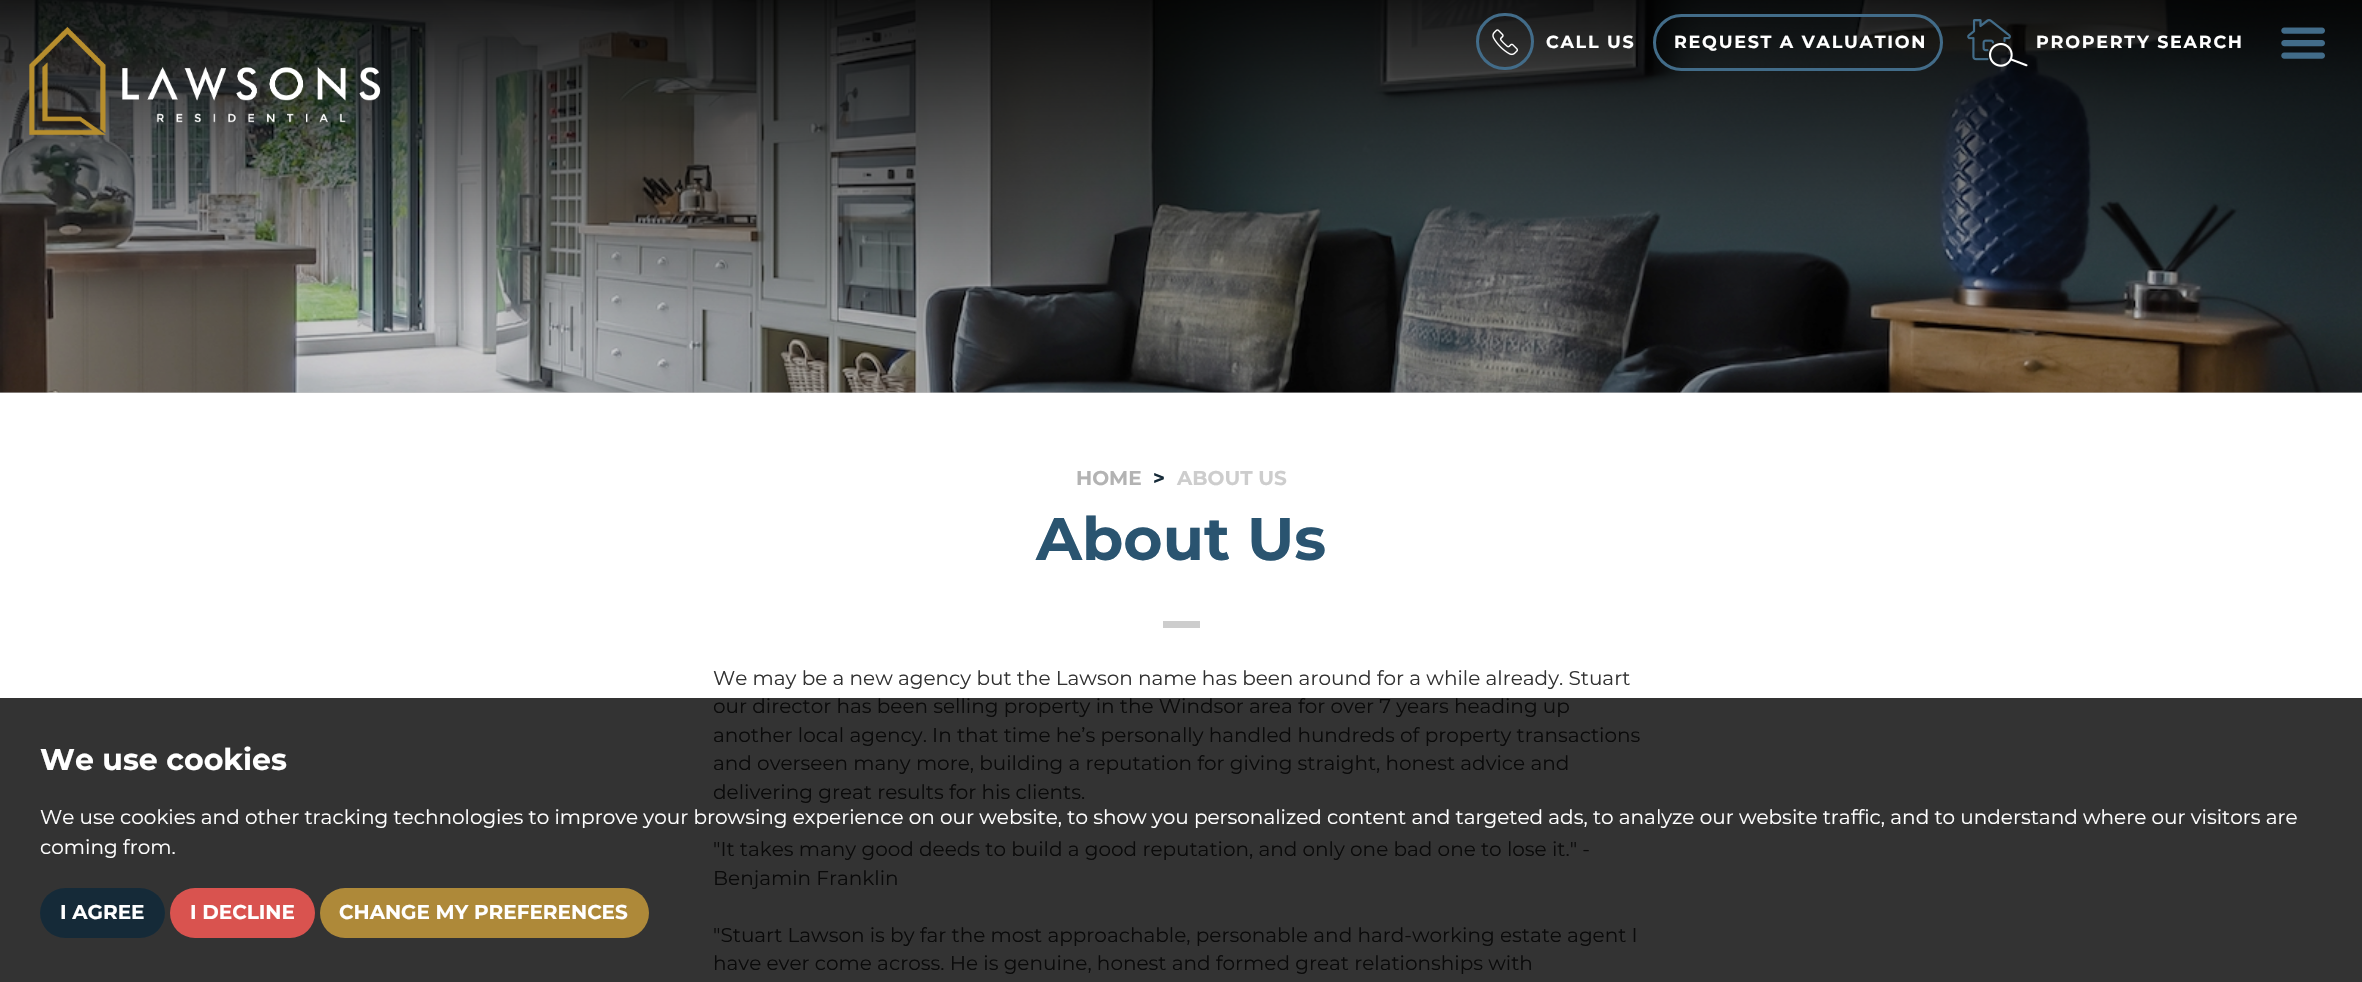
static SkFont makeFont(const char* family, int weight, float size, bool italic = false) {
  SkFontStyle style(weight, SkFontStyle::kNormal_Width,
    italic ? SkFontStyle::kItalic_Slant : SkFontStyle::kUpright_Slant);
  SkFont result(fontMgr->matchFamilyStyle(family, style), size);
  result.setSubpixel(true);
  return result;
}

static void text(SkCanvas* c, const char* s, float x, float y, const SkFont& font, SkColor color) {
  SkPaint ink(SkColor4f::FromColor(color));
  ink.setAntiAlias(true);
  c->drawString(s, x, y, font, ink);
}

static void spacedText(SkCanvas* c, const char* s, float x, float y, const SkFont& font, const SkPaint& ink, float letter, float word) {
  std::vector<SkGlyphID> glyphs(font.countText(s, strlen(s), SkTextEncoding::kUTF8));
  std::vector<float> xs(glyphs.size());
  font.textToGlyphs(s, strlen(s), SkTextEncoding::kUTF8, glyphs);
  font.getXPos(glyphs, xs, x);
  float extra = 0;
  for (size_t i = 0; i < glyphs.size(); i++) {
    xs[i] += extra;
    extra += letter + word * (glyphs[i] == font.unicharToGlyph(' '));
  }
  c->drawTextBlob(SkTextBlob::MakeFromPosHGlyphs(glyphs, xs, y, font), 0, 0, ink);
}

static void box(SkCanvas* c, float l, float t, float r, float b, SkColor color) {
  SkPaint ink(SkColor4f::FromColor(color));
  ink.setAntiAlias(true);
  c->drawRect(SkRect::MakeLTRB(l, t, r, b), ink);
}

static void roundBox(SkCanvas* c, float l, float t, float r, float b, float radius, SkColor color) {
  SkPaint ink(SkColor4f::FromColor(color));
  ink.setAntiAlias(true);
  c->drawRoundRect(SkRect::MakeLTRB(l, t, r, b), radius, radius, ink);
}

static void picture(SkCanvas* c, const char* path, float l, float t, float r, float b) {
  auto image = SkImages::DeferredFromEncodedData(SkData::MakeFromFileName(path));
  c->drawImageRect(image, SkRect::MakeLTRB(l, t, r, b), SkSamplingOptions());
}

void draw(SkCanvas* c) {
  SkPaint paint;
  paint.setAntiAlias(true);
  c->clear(0xffffffff);
  box(c, 0, 698, 2362, 982, 0xff333333);
  picture(c, "img_01.png", 0, 0, 2362, 393);
  {
    const SkColor colors[] = {0x33000000, 0xe6000000};
    const float stops[] = {0.2f, 1};
    const SkPoint ends[] = {{1181, 393}, {1181, 0}};
    paint.setShader(SkGradientShader::MakeLinear(ends, colors, stops, 2, SkTileMode::kClamp));
    paint.setAlpha(255);
  }
  c->drawRect(SkRect::MakeLTRB(0, 0, 2362, 393), paint);
  picture(c, "img_02.png", 29, 26, 381, 136);
  paint.setStyle(SkPaint::kStroke_Style);
  paint.setStrokeWidth(3);
  paint.setShader(nullptr);
  paint.setColor(0xff426c89);
  c->drawRoundRect(SkRect::MakeLTRB(1477.5f, 14.5f, 1532.5f, 68.5f), 27, 27, paint);
  picture(c, "img_03.png", 1492, 29, 1518, 56);
  SkFont face1 = makeFont("Montserrat", 700, 17.5f);
  paint.setStyle(SkPaint::kFill_Style);
  paint.setColor(0xffffffff);
  spacedText(c, "CALL US", 1546, 48, face1, paint, 1.75f, 0);
  paint.setStyle(SkPaint::kStroke_Style);
  paint.setColor(0xff426c89);
  c->drawRoundRect(SkRect::MakeLTRB(1654.5f, 15.5f, 1941.5f, 69.5f), 27, 27, paint);
  paint.setStyle(SkPaint::kFill_Style);
  paint.setColor(0xffffffff);
  spacedText(c, "REQUEST A VALUATION", 1674, 48, face1, paint, 1.75f, 0);
  picture(c, "img_04.png", 1967, 19, 2028, 67);
  spacedText(c, "PROPERTY SEARCH", 2036, 48, face1, paint, 1.75f, 0);
  picture(c, "img_05.png", 2281, 27, 2325, 59);
  SkFont face2 = makeFont("Montserrat", 700, 20);
  text(c, "HOME", 1076, 485, face2, 0xffb3b3b3);
  text(c, ">", 1153, 485, face2, 0xff152a38);
  text(c, "ABOUT US", 1177, 485, face2, 0xffcdcdcd);
  SkFont face3 = makeFont("Montserrat", 700, 60);
  text(c, "About Us", 1036, 560, face3, 0xff2a5470);
  box(c, 1163, 621, 1200, 628, 0xffcdcdcd);
  SkFont face4 = makeFont("Montserrat", 400, 20);
  text(c, "We may be a new agency but the Lawson name has been around for a while already. Stuart", 713, 685, face4, 0xff333333);
  text(c, "our director has been selling property in the Windsor area for over 7 years heading up", 713, 713, face4, 0xff0a0a0a);
  text(c, "another local agency. In that time he’s personally handled hundreds of property transactions", 713, 742, face4, 0xff0a0a0a);
  text(c, "and overseen many more, building a reputation for giving straight, honest advice and", 713, 770, face4, 0xff0a0a0a);
  text(c, "delivering great results for his clients.", 713, 799, face4, 0xff0a0a0a);
  text(c, "\"It takes many good deeds to build a good reputation, and only one bad one to lose it.\" -", 713, 856, face4, 0xff0a0a0a);
  text(c, "Benjamin Franklin", 713, 885, face4, 0xff0a0a0a);
  text(c, "\"Stuart Lawson is by far the most approachable, personable and hard-working estate agent I", 713, 942, face4, 0xff0a0a0a);
  text(c, "have ever come across. He is genuine, honest and formed great relationships with", 713, 970, face4, 0xff0a0a0a);
  SkFont face5 = makeFont("Montserrat", 700, 30);
  text(c, "We use cookies", 40, 770, face5, 0xffffffff);
  text(c, "We use cookies and other tracking technologies to improve your browsing experience on our website, to show you personalized content and targeted ads, to analyze our website traffic, and to understand where our visitors are", 40, 824, face4, 0xffffffff);
  text(c, "coming from.", 40, 854, face4, 0xffffffff);
  roundBox(c, 40, 888, 165, 938, 25, 0xff152a38);
  text(c, "I AGREE", 60, 919, face2, 0xffffffff);
  roundBox(c, 170, 888, 315, 938, 25, 0xffd9534f);
  text(c, "I DECLINE", 190, 919, face2, 0xffffffff);
  roundBox(c, 320, 888, 649, 938, 25, 0xffae8939);
  text(c, "CHANGE MY PREFERENCES", 339, 919, face2, 0xffffffff);
}
